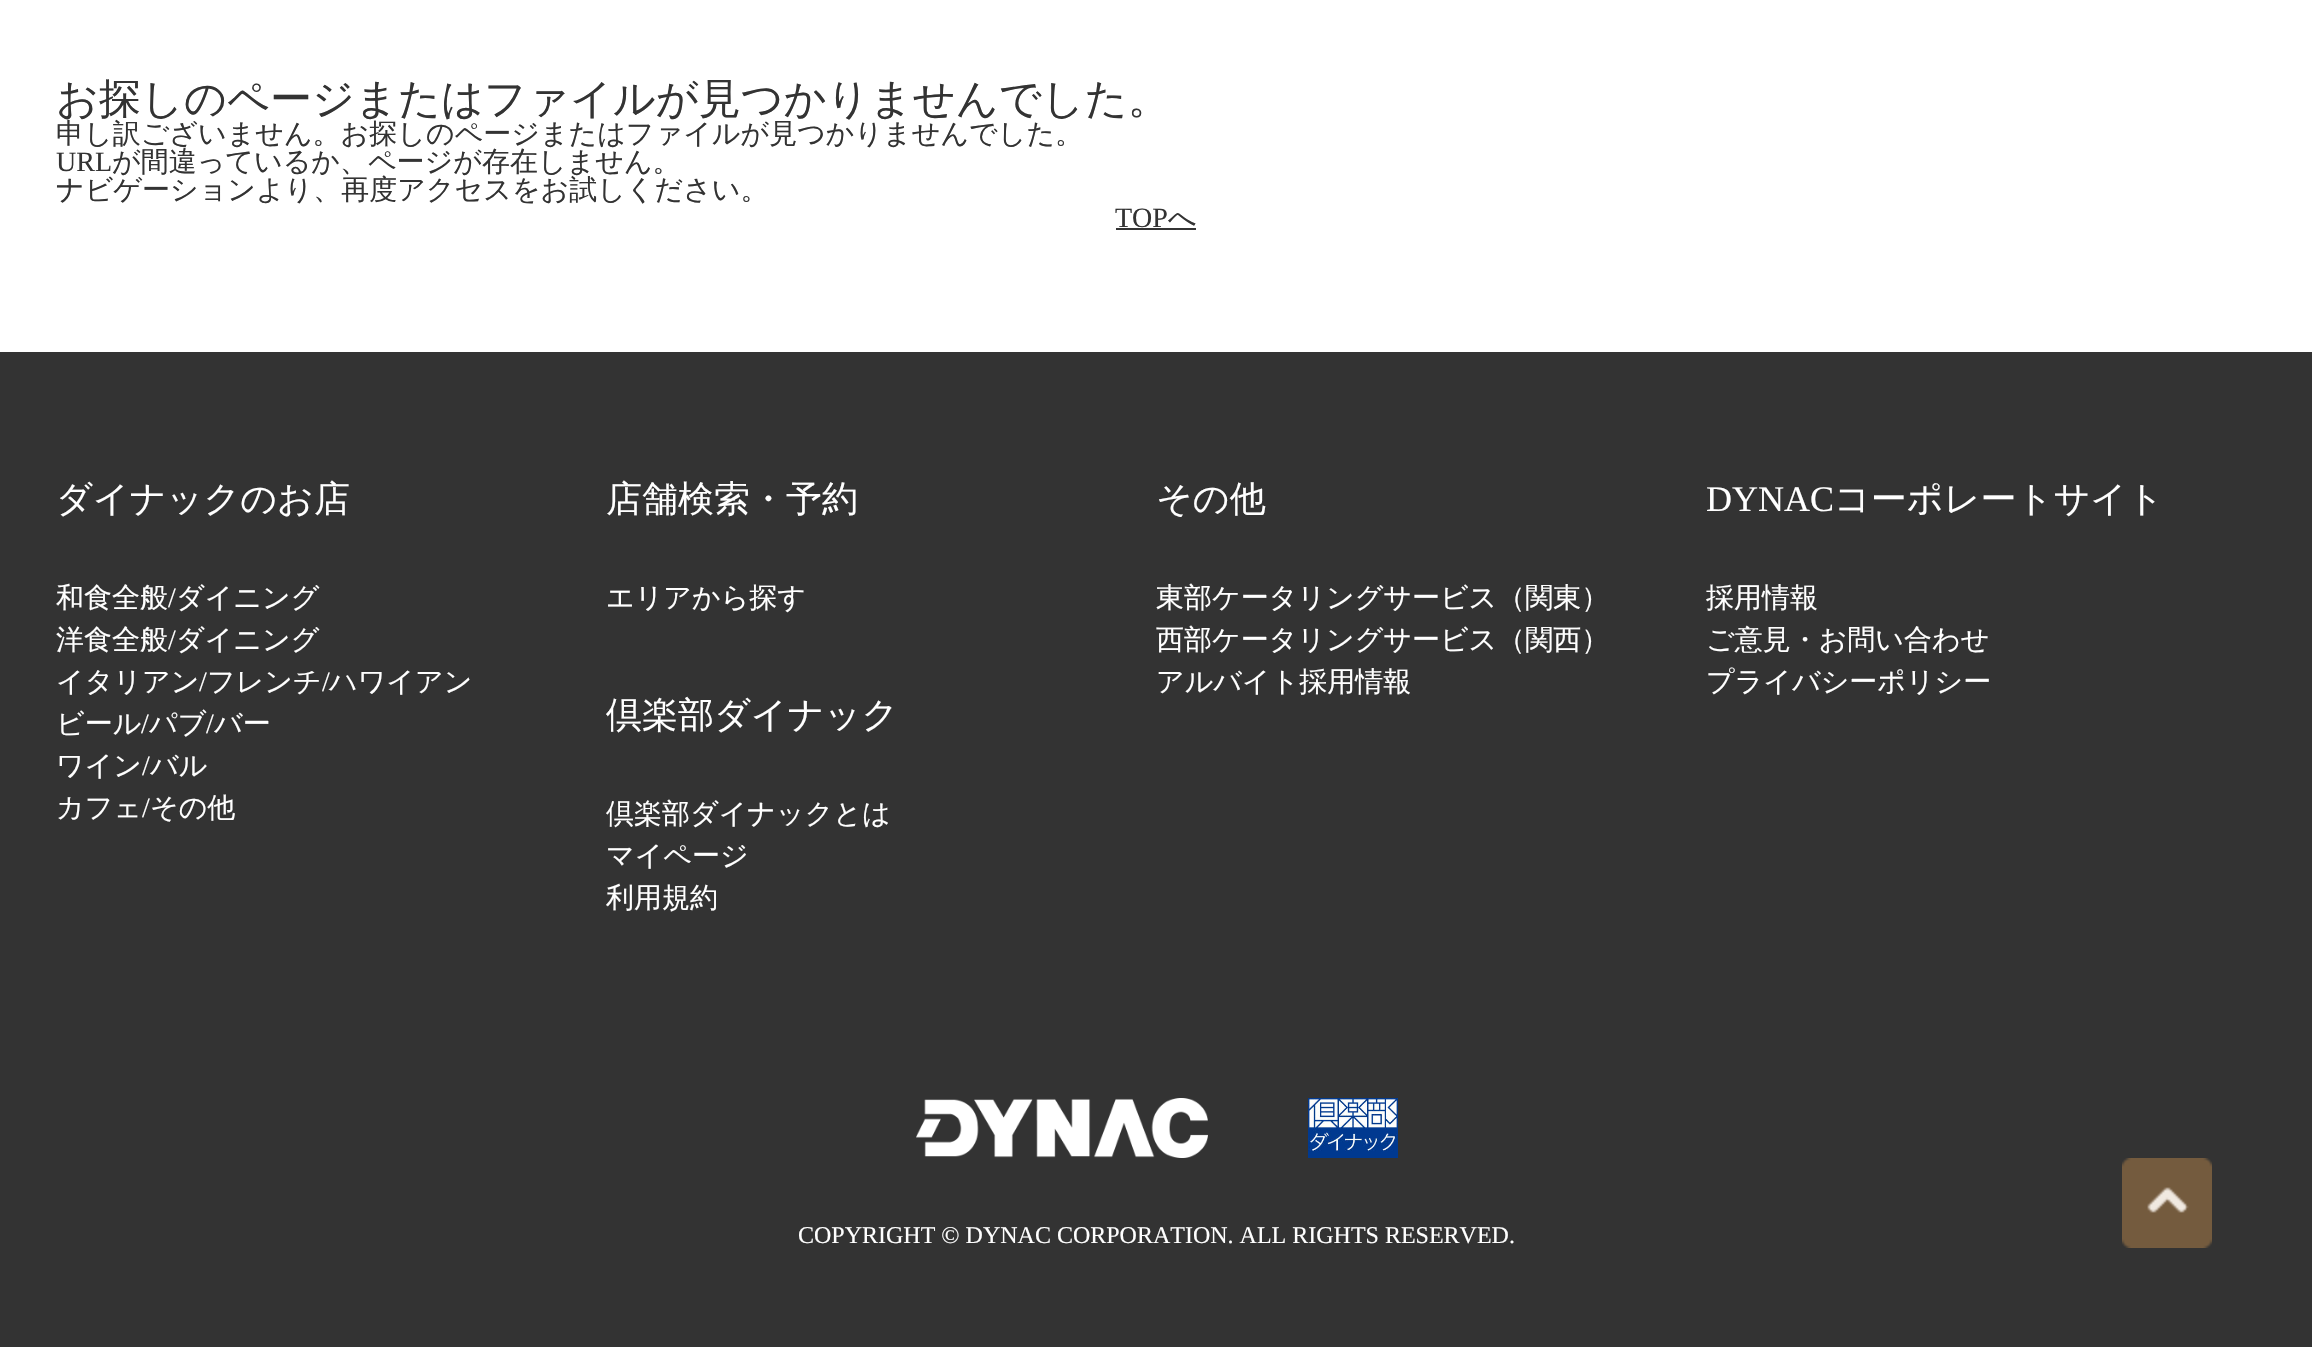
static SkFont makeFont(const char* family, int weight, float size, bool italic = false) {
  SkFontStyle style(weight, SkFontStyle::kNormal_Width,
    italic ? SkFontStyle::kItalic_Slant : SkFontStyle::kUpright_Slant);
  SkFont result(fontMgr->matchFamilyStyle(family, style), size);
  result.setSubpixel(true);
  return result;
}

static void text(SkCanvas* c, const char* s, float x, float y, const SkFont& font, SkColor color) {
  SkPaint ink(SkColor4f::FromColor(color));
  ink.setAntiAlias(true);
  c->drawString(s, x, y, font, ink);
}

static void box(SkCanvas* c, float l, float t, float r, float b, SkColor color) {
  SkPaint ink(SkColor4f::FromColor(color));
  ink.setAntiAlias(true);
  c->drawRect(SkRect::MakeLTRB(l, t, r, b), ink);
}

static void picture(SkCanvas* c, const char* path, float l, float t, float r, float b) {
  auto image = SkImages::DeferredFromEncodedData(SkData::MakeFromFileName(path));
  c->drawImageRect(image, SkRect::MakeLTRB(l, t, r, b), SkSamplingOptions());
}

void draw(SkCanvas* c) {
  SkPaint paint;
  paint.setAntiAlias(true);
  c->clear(0xffffffff);
  SkFont face1 = makeFont("WenQuanYi Zen Hei", 500, 42);
  text(c, "お探しのページまたはファイルが見つかりませんでした。", 56, 113, face1, 0xff333333);
  SkFont face2 = makeFont("WenQuanYi Zen Hei", 500, 28);
  text(c, "申し訳ございません。お探しのページまたはファイルが見つかりませんでした。", 56, 143, face2, 0xff333333);
  SkFont face3 = makeFont("Liberation Serif", 400, 28);
  text(c, "URL", 56, 171, face3, 0xff333333);
  text(c, "が間違っているか、ページが存在しません。", 112, 171, face2, 0xff333333);
  text(c, "ナビゲーションより、再度アクセスをお試しください。", 56, 199, face2, 0xff333333);
  text(c, "TOP", 1115, 227, face3, 0xff333333);
  text(c, "へ", 1168, 227, face2, 0xff333333);
  box(c, 1116, 228, 1196, 230, 0xff333333);
  box(c, 0, 352, 2312, 1347, 0xff333333);
  SkFont face4 = makeFont("WenQuanYi Zen Hei", 500, 36);
  text(c, "ダイナックのお店", 56, 511, face4, 0xffffffff);
  text(c, "和食全般", 56, 607, face2, 0xffffffff);
  text(c, "/", 168, 607, face3, 0xffffffff);
  text(c, "ダイニング", 176, 607, face2, 0xffffffff);
  text(c, "洋食全般", 56, 649, face2, 0xffffffff);
  text(c, "/", 168, 649, face3, 0xffffffff);
  text(c, "ダイニング", 176, 649, face2, 0xffffffff);
  text(c, "イタリアン", 56, 691, face2, 0xffffffff);
  text(c, "/", 199, 691, face3, 0xffffffff);
  text(c, "フレンチ", 207, 691, face2, 0xffffffff);
  text(c, "/", 322, 691, face3, 0xffffffff);
  text(c, "ハワイアン", 329, 691, face2, 0xffffffff);
  text(c, "ビール", 56, 733, face2, 0xffffffff);
  text(c, "/", 141, 733, face3, 0xffffffff);
  text(c, "パブ", 149, 733, face2, 0xffffffff);
  text(c, "/", 206, 733, face3, 0xffffffff);
  text(c, "バー", 214, 733, face2, 0xffffffff);
  text(c, "ワイン", 56, 775, face2, 0xffffffff);
  text(c, "/", 142, 775, face3, 0xffffffff);
  text(c, "バル", 150, 775, face2, 0xffffffff);
  text(c, "カフェ", 56, 817, face2, 0xffffffff);
  text(c, "/", 142, 817, face3, 0xffffffff);
  text(c, "その他", 150, 817, face2, 0xffffffff);
  text(c, "店舗検索・予約", 606, 511, face4, 0xffffffff);
  text(c, "エリアから探す", 606, 607, face2, 0xffffffff);
  text(c, "倶楽部ダイナック", 606, 727, face4, 0xffffffff);
  text(c, "倶楽部ダイナックとは", 606, 823, face2, 0xffffffff);
  text(c, "マイページ", 606, 865, face2, 0xffffffff);
  text(c, "利用規約", 606, 907, face2, 0xffffffff);
  text(c, "その他", 1156, 511, face4, 0xffffffff);
  text(c, "東部ケータリングサービス（関東）", 1156, 607, face2, 0xffffffff);
  text(c, "西部ケータリングサービス（関西）", 1156, 649, face2, 0xffffffff);
  text(c, "アルバイト採用情報", 1156, 691, face2, 0xffffffff);
  SkFont face5 = makeFont("Liberation Serif", 400, 36);
  text(c, "DYNAC", 1706, 511, face5, 0xffffffff);
  text(c, "コーポレートサイト", 1834, 511, face4, 0xffffffff);
  text(c, "採用情報", 1706, 607, face2, 0xffffffff);
  text(c, "ご意見・お問い合わせ", 1706, 649, face2, 0xffffffff);
  text(c, "プライバシーポリシー", 1706, 691, face2, 0xffffffff);
  picture(c, "img_01.png", 916, 1098, 1208, 1158);
  picture(c, "img_02.png", 1308, 1098, 1398, 1158);
  SkFont face6 = makeFont("Liberation Serif", 400, 24);
  text(c, "COPYRIGHT © DYNAC CORPORATION. ALL RIGHTS RESERVED.", 798, 1243, face6, 0xffffffff);
  picture(c, "img_03.png", 2122, 1158, 2212, 1248);
}
